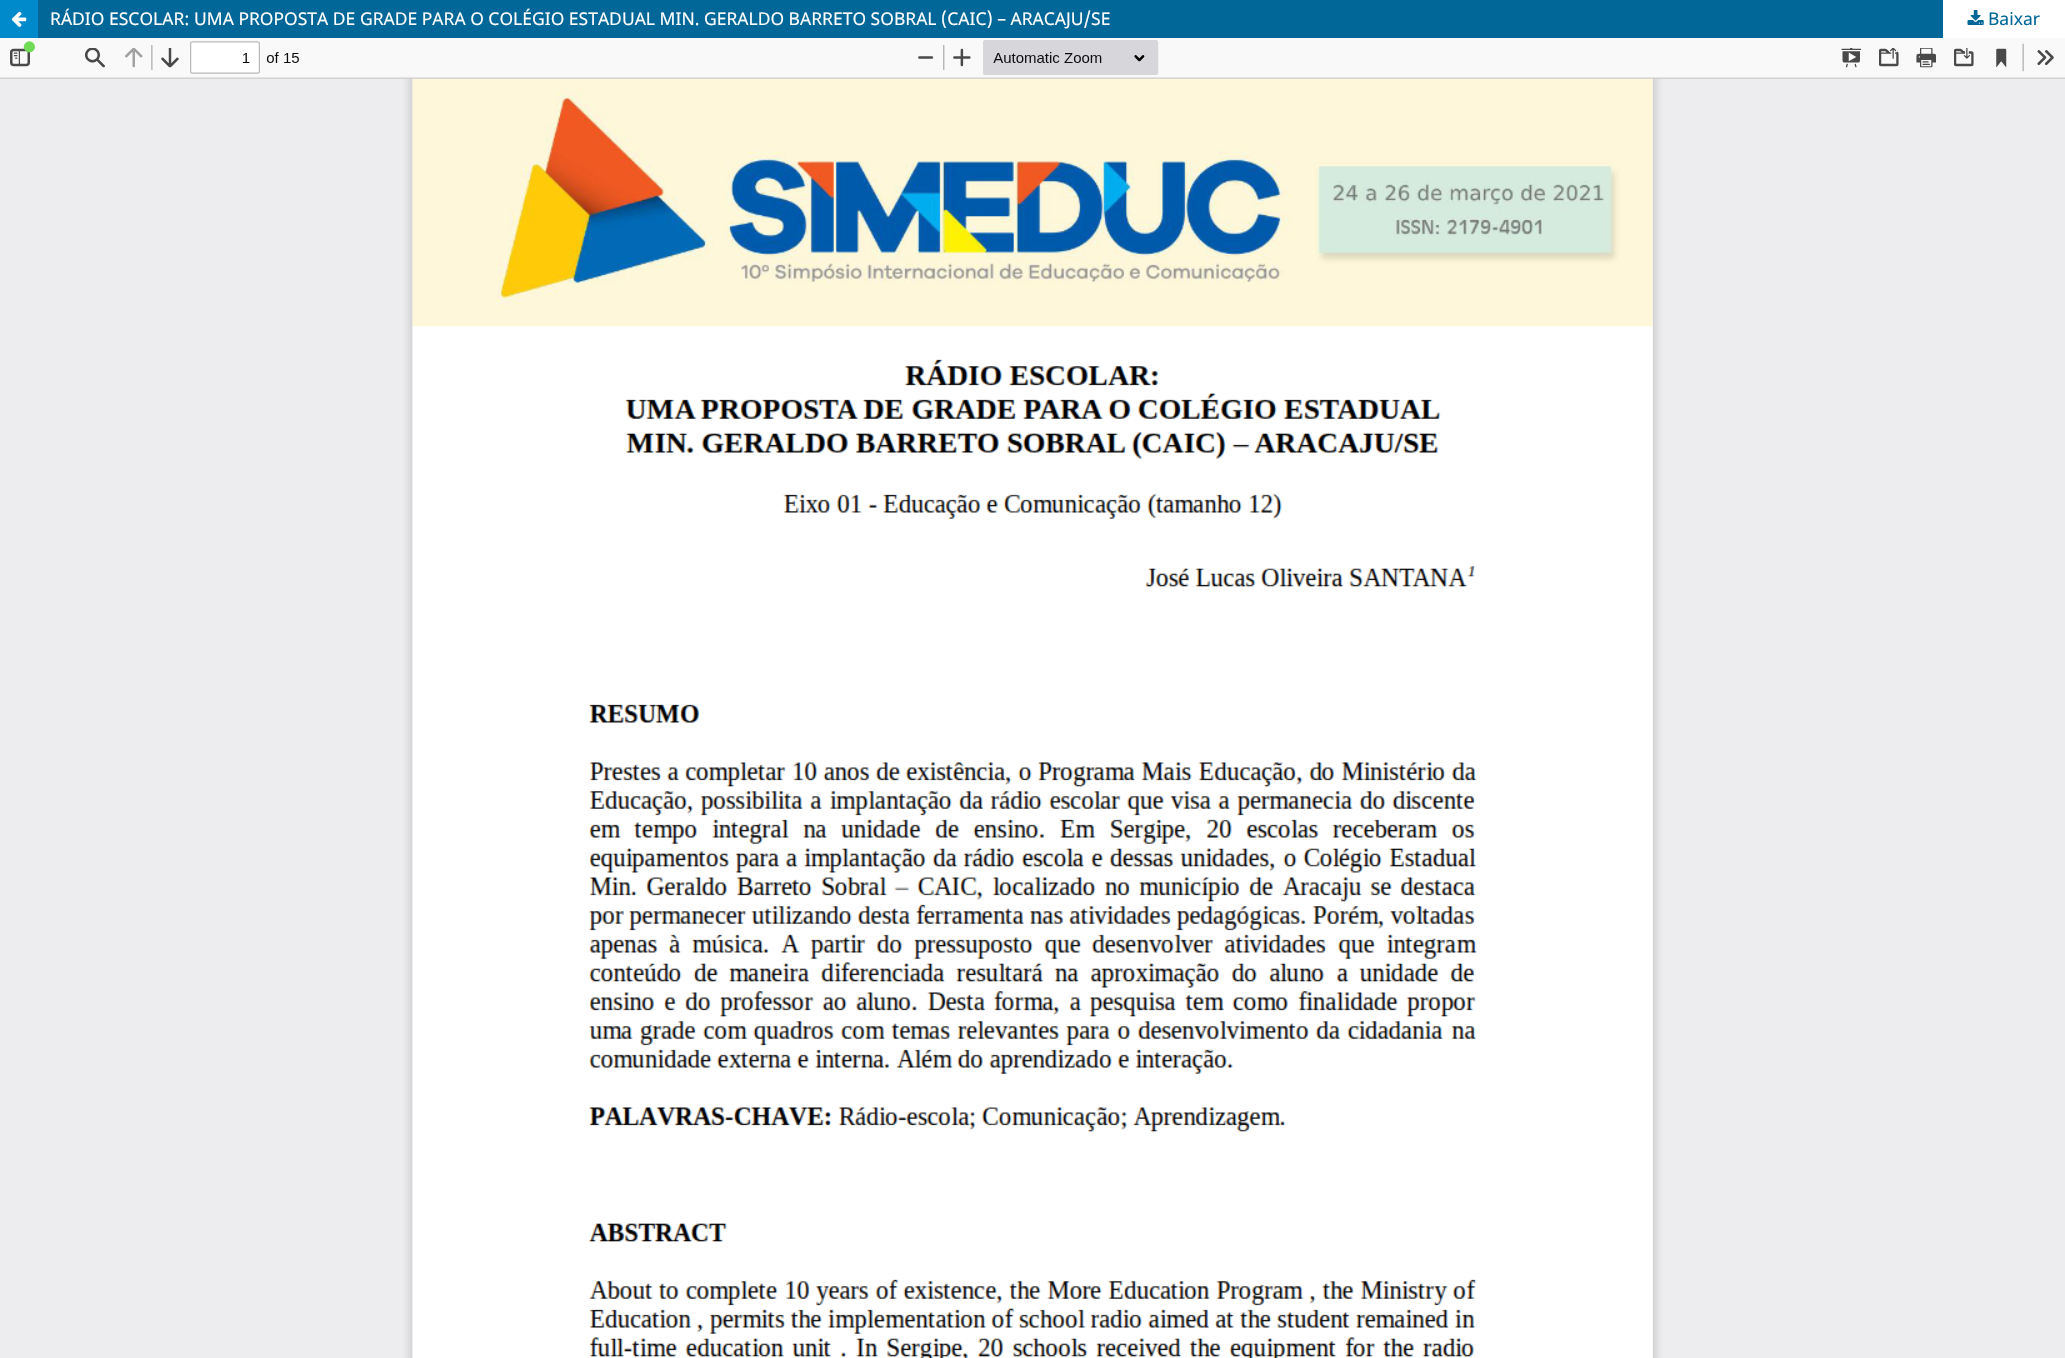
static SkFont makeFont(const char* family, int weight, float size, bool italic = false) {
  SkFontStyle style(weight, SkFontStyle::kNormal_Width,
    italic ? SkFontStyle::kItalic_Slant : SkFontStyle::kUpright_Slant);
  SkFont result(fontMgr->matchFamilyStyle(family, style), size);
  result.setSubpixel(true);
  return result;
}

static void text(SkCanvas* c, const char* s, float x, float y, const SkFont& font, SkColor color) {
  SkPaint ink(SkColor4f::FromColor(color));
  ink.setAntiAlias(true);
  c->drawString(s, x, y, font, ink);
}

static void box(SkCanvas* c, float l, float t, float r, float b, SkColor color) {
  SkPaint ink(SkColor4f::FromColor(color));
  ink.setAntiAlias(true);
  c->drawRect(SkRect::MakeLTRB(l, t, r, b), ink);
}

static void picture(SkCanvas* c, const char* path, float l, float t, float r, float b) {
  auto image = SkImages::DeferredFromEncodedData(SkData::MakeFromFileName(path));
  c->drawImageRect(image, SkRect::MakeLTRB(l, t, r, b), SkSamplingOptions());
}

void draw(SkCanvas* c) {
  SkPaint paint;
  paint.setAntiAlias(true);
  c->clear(0xffffffff);
  box(c, 38, 0, 1943, 38, 0xff006798);
  box(c, 0, 0, 38, 38, 0xff008acb);
  picture(c, "img_01.png", 11, 11, 27, 27);
  SkFont face1 = makeFont("Noto Sans", 400, 17.5f);
  text(c, "RÁDIO ESCOLAR: UMA PROPOSTA DE GRADE PARA O COLÉGIO ESTADUAL MIN. GERALDO BARRETO SOBRAL (CAIC) – ARACAJU/SE", 50, 25, face1, 0xffffffff);
  picture(c, "img_02.png", 1967, 10, 1984, 25);
  text(c, "Baixar", 1988, 25, face1, 0xff006798);
  picture(c, "img_03.png", 0, 38, 2065, 1358);
}
